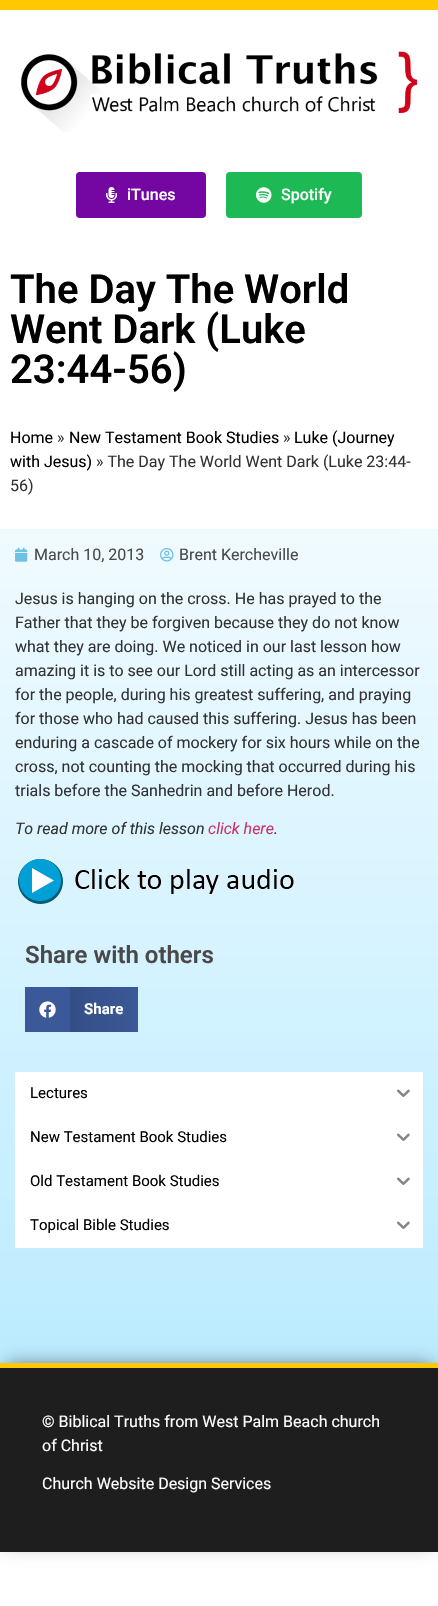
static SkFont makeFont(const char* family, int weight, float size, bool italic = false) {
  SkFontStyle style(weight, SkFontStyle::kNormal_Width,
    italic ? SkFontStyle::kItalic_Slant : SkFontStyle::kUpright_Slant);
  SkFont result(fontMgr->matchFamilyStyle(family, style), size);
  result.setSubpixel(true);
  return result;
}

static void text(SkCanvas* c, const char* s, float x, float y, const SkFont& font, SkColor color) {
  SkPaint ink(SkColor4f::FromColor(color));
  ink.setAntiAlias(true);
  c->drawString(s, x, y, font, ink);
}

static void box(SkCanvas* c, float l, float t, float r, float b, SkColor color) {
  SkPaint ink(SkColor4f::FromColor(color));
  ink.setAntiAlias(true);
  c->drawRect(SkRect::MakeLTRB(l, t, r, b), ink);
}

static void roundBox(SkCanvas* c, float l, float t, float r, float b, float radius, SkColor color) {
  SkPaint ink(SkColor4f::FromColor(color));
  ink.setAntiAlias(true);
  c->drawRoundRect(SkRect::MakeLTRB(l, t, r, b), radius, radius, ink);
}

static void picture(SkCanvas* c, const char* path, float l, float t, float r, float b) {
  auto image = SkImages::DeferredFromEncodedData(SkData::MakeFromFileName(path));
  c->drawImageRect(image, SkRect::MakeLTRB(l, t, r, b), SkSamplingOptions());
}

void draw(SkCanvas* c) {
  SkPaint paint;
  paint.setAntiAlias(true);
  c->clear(0xffffffff);
  {
    const SkColor colors[] = {0xffffffff, 0xffb0e8ff};
    const float stops[] = {0.19f, 1};
    const SkPoint ends[] = {{219, 0}, {219, 1552}};
    paint.setShader(SkGradientShader::MakeLinear(ends, colors, stops, 2, SkTileMode::kClamp));
    paint.setAlpha(255);
  }
  c->drawRect(SkRect::MakeLTRB(0, 335, 438, 1363), paint);
  {
    const SkColor colors[] = {0xffffffff, 0xffd8f4ff};
    const float stops[] = {0.19f, 1};
    const SkPoint ends[] = {{219, 0}, {219, 1552}};
    paint.setShader(SkGradientShader::MakeLinear(ends, colors, stops, 2, SkTileMode::kClamp));
    paint.setAlpha(255);
  }
  c->drawRect(SkRect::MakeLTRB(404, 528, 438, 529), paint);
  box(c, 0, 0, 438, 10, 0xffffc800);
  picture(c, "img_01.png", 21, 51, 418, 132);
  roundBox(c, 76, 172, 206, 218, 4, 0xff7407a2);
  picture(c, "img_02.png", 106, 187, 117, 203);
  SkFont face1 = makeFont("Roboto", 500, 16);
  text(c, "iTunes", 127, 200, face1, 0xffffffff);
  roundBox(c, 226, 172, 362, 218, 4, 0xff1db954);
  picture(c, "img_03.png", 256, 187, 272, 203);
  text(c, "Spotify", 281, 200, face1, 0xffffffff);
  box(c, 0, 335, 438, 517, 0xffffffff);
  box(c, 1, 517, 438, 528, 0xffffffff);
  SkFont face2 = makeFont("Roboto", 600, 40);
  text(c, "The Day The World", 10, 303, face2, 0xff000000);
  text(c, "Went Dark (Luke", 10, 343, face2, 0xff000000);
  text(c, "23:44-56)", 10, 383, face2, 0xff000000);
  SkFont face3 = makeFont("Roboto", 400, 16);
  text(c, "Home", 10, 443, face3, 0xff000000);
  text(c, "»", 57, 443, face3, 0xff333333);
  text(c, "New Testament Book Studies", 69, 443, face3, 0xff000000);
  text(c, "»", 283, 443, face3, 0xff333333);
  text(c, "Luke (Journey", 294, 443, face3, 0xff000000);
  text(c, "with Jesus)", 10, 467, face3, 0xff000000);
  text(c, "» The Day The World Went Dark (Luke 23:44-", 96, 467, face3, 0xff333333);
  text(c, "56)", 10, 491, face3, 0xff333333);
  paint.setShader(nullptr);
  paint.setColor(0xffffffff);
  c->drawPath(SkPathBuilder().moveTo(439, 529).lineTo(-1, 529).lineTo(-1, 517).close().detach(), paint);
  picture(c, "img_04.png", 15, 547, 28, 562);
  text(c, "March 10, 2013", 34, 560, face3, 0xff494949);
  picture(c, "img_05.png", 160, 548, 174, 562);
  text(c, "Brent Kercheville", 179, 560, face3, 0xff494949);
  text(c, "Jesus is hanging on the cross. He has prayed to the", 15, 604, face3, 0xff333333);
  text(c, "Father that they be forgiven because they do not know", 15, 628, face3, 0xff333333);
  text(c, "what they are doing. We noticed in our last lesson how", 15, 652, face3, 0xff333333);
  text(c, "amazing it is to see our Lord still acting as an intercessor", 15, 676, face3, 0xff333333);
  text(c, "for the people, during his greatest suffering, and praying", 15, 700, face3, 0xff333333);
  text(c, "for those who had caused this suffering. Jesus has been", 15, 724, face3, 0xff333333);
  text(c, "enduring a cascade of mockery for six hours while on the", 15, 748, face3, 0xff333333);
  text(c, "cross, not counting the mocking that occurred during his", 15, 772, face3, 0xff333333);
  text(c, "trials before the Sanhedrin and before Herod.", 15, 796, face3, 0xff333333);
  SkFont face4 = makeFont("Roboto", 400, 16, true);
  text(c, "To read more of this lesson", 15, 834, face4, 0xff333333);
  text(c, "click here", 208, 834, face4, 0xffcc3366);
  text(c, ".", 274, 834, face4, 0xff333333);
  picture(c, "img_06.png", 18, 859, 294, 904);
  SkFont face5 = makeFont("Roboto", 600, 24);
  text(c, "Share with others", 25, 963, face5, 0xff494949);
  box(c, 25, 987, 70, 1032, 0xff3b5998);
  picture(c, "img_07.png", 39, 1001, 56, 1018);
  {
    const SkColor colors[] = {0xff344e86, 0xff3b5998};
    const float stops[] = {0, 1};
    const SkPoint ends[] = {{70, 1010}, {138, 1010}};
    paint.setShader(SkGradientShader::MakeLinear(ends, colors, stops, 2, SkTileMode::kClamp));
    paint.setAlpha(255);
  }
  c->drawRect(SkRect::MakeLTRB(70, 987, 138, 1032), paint);
  SkFont face6 = makeFont("Roboto", 700, 15);
  text(c, "Share", 84, 1014, face6, 0xffffffff);
  box(c, 15, 1072, 423, 1248, 0xffffffff);
  SkFont face7 = makeFont("Roboto", 400, 15);
  text(c, "Lectures", 30, 1098, face7, 0xff000000);
  picture(c, "img_08.png", 397, 1089, 410, 1097);
  text(c, "New Testament Book Studies", 30, 1142, face7, 0xff000000);
  picture(c, "img_08.png", 397, 1133, 410, 1141);
  text(c, "Old Testament Book Studies", 30, 1186, face7, 0xff000000);
  picture(c, "img_08.png", 397, 1177, 410, 1185);
  text(c, "Topical Bible Studies", 30, 1230, face7, 0xff000000);
  picture(c, "img_08.png", 397, 1221, 410, 1229);
  paint.setShader(nullptr);
  paint.setColor(0x80000000);
  paint.setMaskFilter(SkMaskFilter::MakeBlur(kNormal_SkBlurStyle, 9.5f));
  c->drawRect(SkRect::MakeLTRB(6, 1365, 432, 1542), paint);
  paint.setMaskFilter(nullptr);
  box(c, 0, 1368, 438, 1552, 0xff1e1e1e);
  box(c, 0, 1363, 438, 1368, 0xffffc800);
  text(c, "© Biblical Truths from West Palm Beach church", 42, 1427, face3, 0xffffffff);
  text(c, "of Christ", 42, 1451, face3, 0xffffffff);
  text(c, "Church Website Design Services", 42, 1489, face3, 0xffffffff);
}
